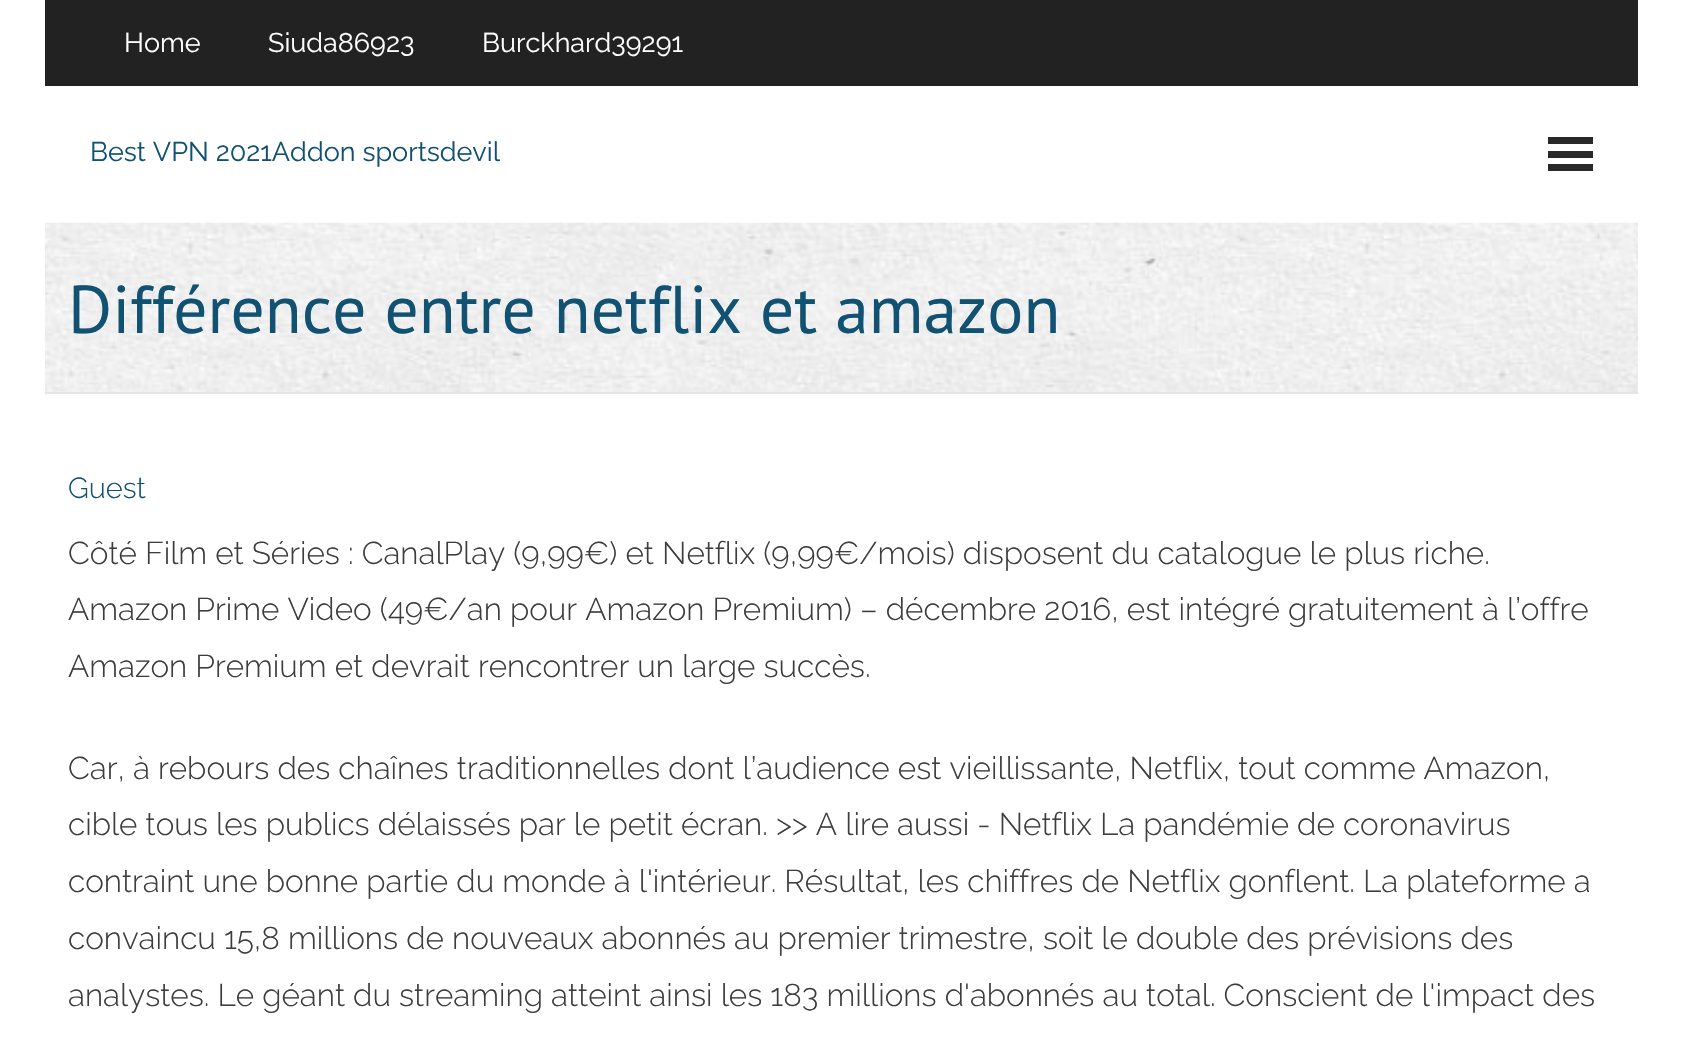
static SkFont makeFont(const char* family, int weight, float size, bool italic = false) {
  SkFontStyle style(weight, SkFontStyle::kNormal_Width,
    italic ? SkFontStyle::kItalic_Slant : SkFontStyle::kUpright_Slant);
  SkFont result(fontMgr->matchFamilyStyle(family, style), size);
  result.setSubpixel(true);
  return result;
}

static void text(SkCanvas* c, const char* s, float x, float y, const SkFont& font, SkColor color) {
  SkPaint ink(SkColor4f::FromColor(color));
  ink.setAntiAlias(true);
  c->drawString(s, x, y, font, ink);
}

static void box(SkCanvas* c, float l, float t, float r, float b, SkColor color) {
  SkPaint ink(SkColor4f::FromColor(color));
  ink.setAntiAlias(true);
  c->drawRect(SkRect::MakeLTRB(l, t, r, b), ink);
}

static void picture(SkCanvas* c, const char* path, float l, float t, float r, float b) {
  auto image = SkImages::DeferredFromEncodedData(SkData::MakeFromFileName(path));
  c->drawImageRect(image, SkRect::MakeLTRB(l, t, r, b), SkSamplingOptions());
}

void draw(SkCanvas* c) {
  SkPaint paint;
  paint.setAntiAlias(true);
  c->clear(0xffffffff);
  box(c, 45, 0, 1638, 86, 0xff222222);
  SkFont face1 = makeFont("Raleway", 400, 27);
  text(c, "Home", 124, 52, face1, 0xffffffff);
  text(c, "Siuda86923", 268, 52, face1, 0xffffffff);
  text(c, "Burckhard39291", 482, 52, face1, 0xffffffff);
  text(c, "Best VPN 2021Addon sportsdevil", 90, 161, face1, 0xff115172);
  box(c, 1548, 137, 1593, 144, 0xff292929);
  box(c, 1548, 151, 1593, 158, 0xff292929);
  box(c, 1548, 164, 1593, 171, 0xff292929);
  picture(c, "img_01.png", 45, 222, 1638, 392);
  box(c, 45, 392, 1638, 394, 0xffe5e5e5);
  SkFont face2 = makeFont("PT Sans", 400, 67.5f);
  text(c, "Différence entre netflix et amazon", 68, 333, face2, 0xff115172);
  SkFont face3 = makeFont("Raleway", 300, 29);
  text(c, "Guest", 68, 498, face3, 0xff115172);
  SkFont face4 = makeFont("Raleway", 300, 31.5f);
  text(c, "Côté Film et Séries : CanalPlay (9,99€) et Netflix (9,99€/mois) disposent du catalogue le plus riche.", 68, 564, face4, 0xff3d3d3d);
  text(c, "Amazon Prime Video (49€/an pour Amazon Premium) – décembre 2016, est intégré gratuitement à l’offre", 68, 620, face4, 0xff3d3d3d);
  text(c, "Amazon Premium et devrait rencontrer un large succès.", 68, 677, face4, 0xff3d3d3d);
  text(c, "Car, à rebours des chaînes traditionnelles dont l’audience est vieillissante, Netflix, tout comme Amazon,", 68, 779, face4, 0xff3d3d3d);
  text(c, "cible tous les publics délaissés par le petit écran. >> A lire aussi - Netflix La pandémie de coronavirus", 68, 835, face4, 0xff3d3d3d);
  text(c, "contraint une bonne partie du monde à l'intérieur. Résultat, les chiffres de Netflix gonflent. La plateforme a", 68, 892, face4, 0xff3d3d3d);
  text(c, "convaincu 15,8 millions de nouveaux abonnés au premier trimestre, soit le double des prévisions des", 68, 949, face4, 0xff3d3d3d);
  text(c, "analystes. Le géant du streaming atteint ainsi les 183 millions d'abonnés au total. Conscient de l'impact des", 68, 1006, face4, 0xff3d3d3d);
}
